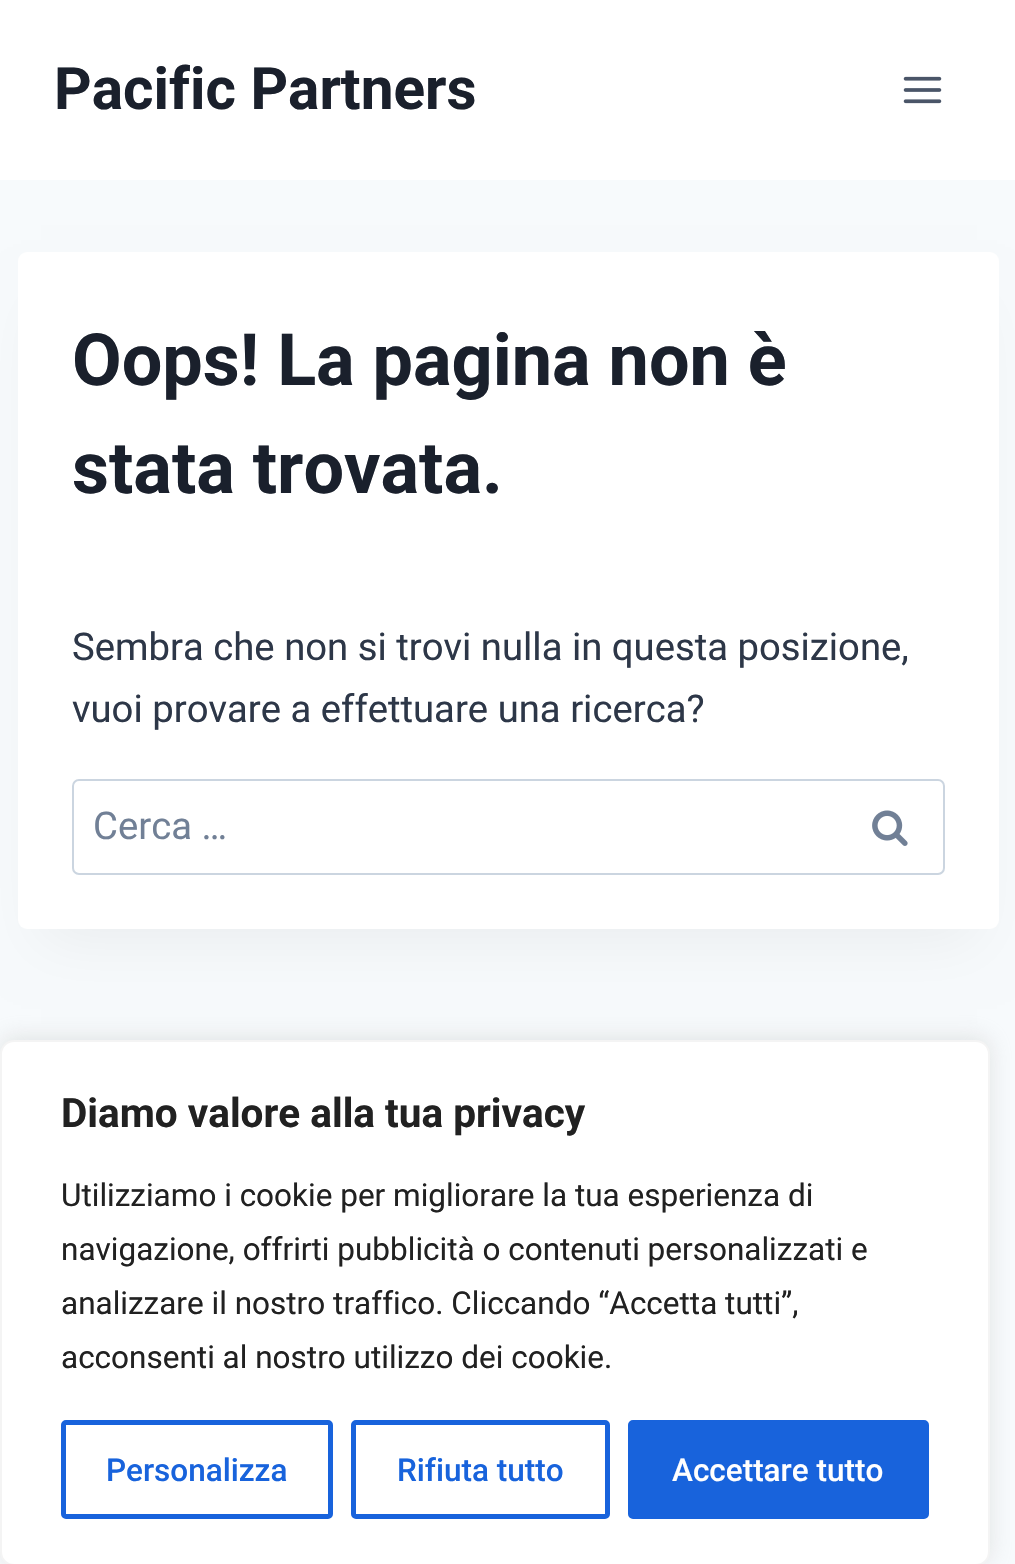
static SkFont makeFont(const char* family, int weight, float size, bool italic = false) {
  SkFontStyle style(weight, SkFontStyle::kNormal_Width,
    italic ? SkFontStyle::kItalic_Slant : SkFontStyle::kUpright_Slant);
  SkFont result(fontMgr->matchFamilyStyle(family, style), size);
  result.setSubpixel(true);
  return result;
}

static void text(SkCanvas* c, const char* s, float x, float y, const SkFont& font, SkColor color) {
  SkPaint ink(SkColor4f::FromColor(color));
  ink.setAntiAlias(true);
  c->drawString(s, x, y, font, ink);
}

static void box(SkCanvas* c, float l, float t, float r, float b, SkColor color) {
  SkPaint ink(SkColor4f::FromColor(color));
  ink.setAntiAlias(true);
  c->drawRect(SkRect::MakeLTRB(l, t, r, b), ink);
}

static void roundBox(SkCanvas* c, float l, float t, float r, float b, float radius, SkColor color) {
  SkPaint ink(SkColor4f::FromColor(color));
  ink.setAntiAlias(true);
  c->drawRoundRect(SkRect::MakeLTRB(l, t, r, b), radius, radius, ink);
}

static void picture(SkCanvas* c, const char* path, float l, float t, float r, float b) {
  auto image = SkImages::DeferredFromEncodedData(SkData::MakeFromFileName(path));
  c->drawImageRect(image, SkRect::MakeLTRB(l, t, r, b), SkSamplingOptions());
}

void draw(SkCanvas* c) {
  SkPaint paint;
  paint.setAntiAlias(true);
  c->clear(0xfff7fafc);
  box(c, 0, 0, 1015, 180, 0xffffffff);
  SkFont face1 = makeFont("Roboto", 700, 58.5f);
  text(c, "Pacific Partners", 54, 109, face1, 0xff1a202c);
  picture(c, "img_01.png", 903, 76, 942, 104);
  paint.setColor(0x0d000000);
  paint.setMaskFilter(SkMaskFilter::MakeBlur(kNormal_SkBlurStyle, 28));
  c->drawRect(SkRect::MakeLTRB(41, 308, 977, 941), paint);
  paint.setMaskFilter(nullptr);
  roundBox(c, 18, 252, 999, 929, 9, 0xffffffff);
  SkFont face2 = makeFont("Roboto", 700, 72);
  text(c, "Oops! La pagina non è", 72, 385, face2, 0xff1a202c);
  text(c, "stata trovata.", 72, 493, face2, 0xff1a202c);
  SkFont face3 = makeFont("Roboto", 400, 38.25f);
  text(c, "Sembra che non si trovi nulla in questa posizione,", 72, 660, face3, 0xff2d3748);
  text(c, "vuoi provare a effettuare una ricerca?", 72, 722, face3, 0xff2d3748);
  paint.setStyle(SkPaint::kStroke_Style);
  paint.setStrokeWidth(2);
  paint.setColor(0xffcbd5e0);
  c->drawRoundRect(SkRect::MakeLTRB(73, 780, 944, 874), 6, 6, paint);
  text(c, "Cerca …", 93, 839, face3, 0xff718096);
  picture(c, "img_02.png", 872, 810, 908, 846);
  paint.setStyle(SkPaint::kFill_Style);
  paint.setColor(0x4dacabab);
  paint.setMaskFilter(SkMaskFilter::MakeBlur(kNormal_SkBlurStyle, 11));
  c->drawRoundRect(SkRect::MakeLTRB(0, 1037, 990, 1564), 14, 14, paint);
  paint.setMaskFilter(nullptr);
  paint.setColor(0xffffffff);
  c->drawRoundRect(SkRect::MakeLTRB(1, 1041, 989, 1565), 13, 13, paint);
  paint.setStyle(SkPaint::kStroke_Style);
  paint.setColor(0xfff4f4f4);
  c->drawRoundRect(SkRect::MakeLTRB(1, 1041, 989, 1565), 13, 13, paint);
  SkFont face4 = makeFont("Roboto", 700, 40.5f);
  text(c, "Diamo valore alla tua privacy", 61, 1127, face4, 0xff212121);
  SkFont face5 = makeFont("Roboto", 400, 31.5f);
  text(c, "Utilizziamo i cookie per migliorare la tua esperienza di", 61, 1206, face5, 0xff212121);
  text(c, "navigazione, offrirti pubblicità o contenuti personalizzati e", 61, 1260, face5, 0xff212121);
  text(c, "analizzare il nostro traffico. Cliccando “Accetta tutti”,", 61, 1314, face5, 0xff212121);
  text(c, "acconsenti al nostro utilizzo dei cookie.", 61, 1368, face5, 0xff212121);
  paint.setStrokeWidth(5);
  paint.setColor(0xff1863dc);
  c->drawRoundRect(SkRect::MakeLTRB(63.5f, 1422.5f, 330.5f, 1516.5f), 2.5f, 2.5f, paint);
  SkFont face6 = makeFont("Roboto", 500, 31.5f);
  text(c, "Personalizza", 106, 1481, face6, 0xff1863dc);
  c->drawRoundRect(SkRect::MakeLTRB(353.5f, 1422.5f, 607.5f, 1516.5f), 2.5f, 2.5f, paint);
  text(c, "Rifiuta tutto", 397, 1481, face6, 0xff1863dc);
  paint.setStyle(SkPaint::kFill_Style);
  c->drawRoundRect(SkRect::MakeLTRB(630.5f, 1422.5f, 926.5f, 1516.5f), 2.5f, 2.5f, paint);
  paint.setStyle(SkPaint::kStroke_Style);
  c->drawRoundRect(SkRect::MakeLTRB(630.5f, 1422.5f, 926.5f, 1516.5f), 2.5f, 2.5f, paint);
  text(c, "Accettare tutto", 672, 1481, face6, 0xffffffff);
}
